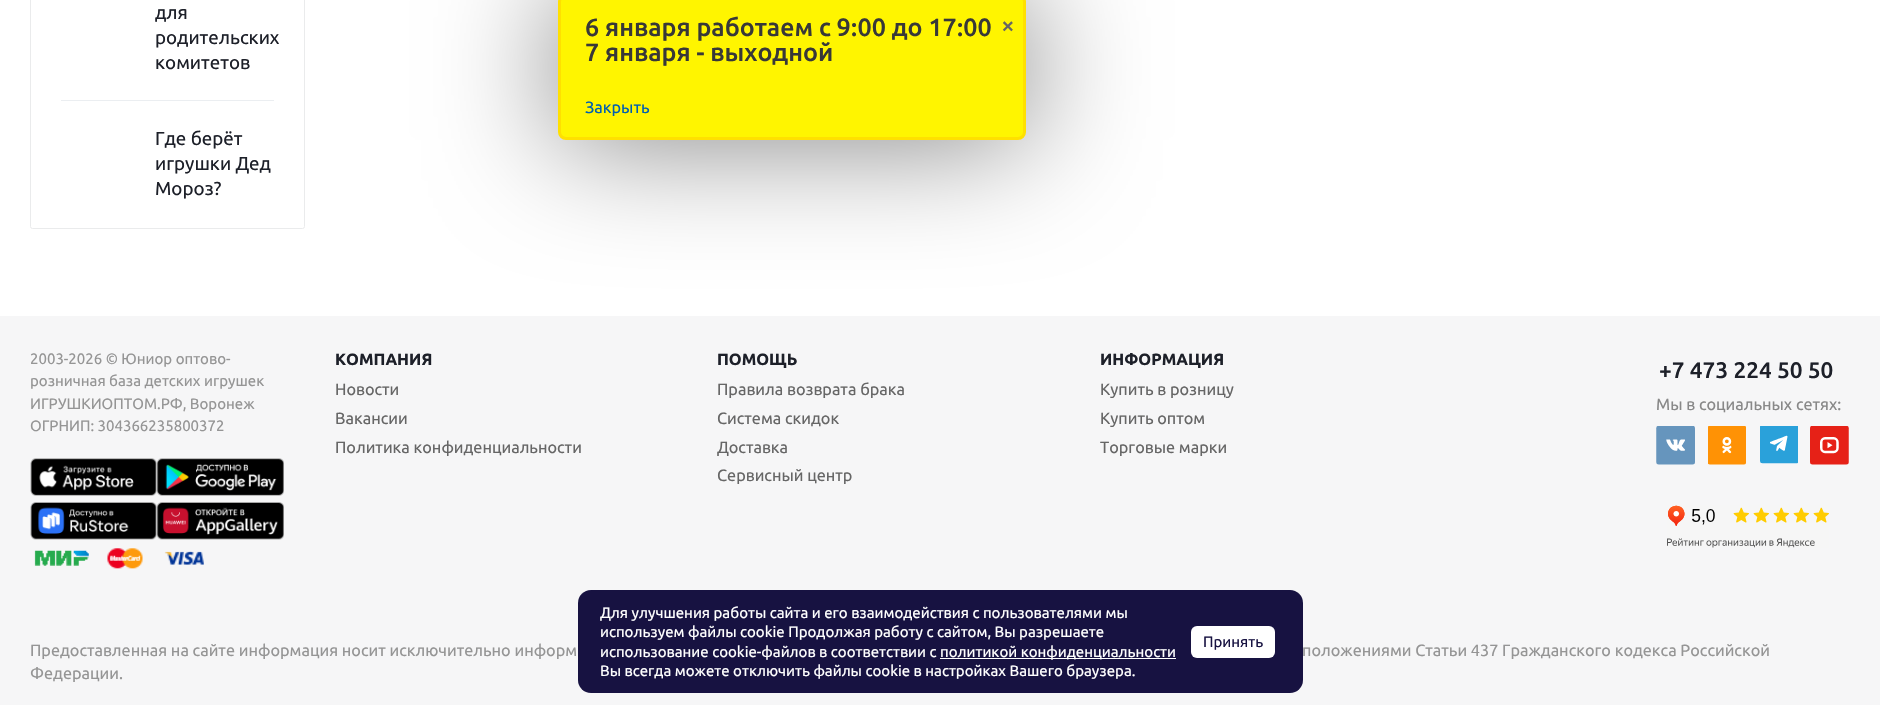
static SkFont makeFont(const char* family, int weight, float size, bool italic = false) {
  SkFontStyle style(weight, SkFontStyle::kNormal_Width,
    italic ? SkFontStyle::kItalic_Slant : SkFontStyle::kUpright_Slant);
  SkFont result(fontMgr->matchFamilyStyle(family, style), size);
  result.setSubpixel(true);
  return result;
}

static void text(SkCanvas* c, const char* s, float x, float y, const SkFont& font, SkColor color) {
  SkPaint ink(SkColor4f::FromColor(color));
  ink.setAntiAlias(true);
  c->drawString(s, x, y, font, ink);
}

static void box(SkCanvas* c, float l, float t, float r, float b, SkColor color) {
  SkPaint ink(SkColor4f::FromColor(color));
  ink.setAntiAlias(true);
  c->drawRect(SkRect::MakeLTRB(l, t, r, b), ink);
}

static void roundBox(SkCanvas* c, float l, float t, float r, float b, float radius, SkColor color) {
  SkPaint ink(SkColor4f::FromColor(color));
  ink.setAntiAlias(true);
  c->drawRoundRect(SkRect::MakeLTRB(l, t, r, b), radius, radius, ink);
}

static void picture(SkCanvas* c, const char* path, float l, float t, float r, float b) {
  auto image = SkImages::DeferredFromEncodedData(SkData::MakeFromFileName(path));
  c->drawImageRect(image, SkRect::MakeLTRB(l, t, r, b), SkSamplingOptions());
}

void draw(SkCanvas* c) {
  SkPaint paint;
  paint.setAntiAlias(true);
  c->clear(0xfff6f6f7);
  box(c, 0, 0, 1880, 316, 0xffffffff);
  paint.setStyle(SkPaint::kStroke_Style);
  paint.setStrokeWidth(1);
  paint.setColor(0xffeaebec);
  c->drawRoundRect(SkRect::MakeLTRB(30.5f, -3.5f, 304.5f, 228.5f), 2, 2, paint);
  box(c, 61, 100, 274, 101, 0xffebeef1);
  SkFont face1 = makeFont("Ubuntu", 400, 18.75f);
  text(c, "для", 155, 19, face1, 0xff1d2029);
  text(c, "родительских", 155, 44, face1, 0xff1d2029);
  text(c, "комитетов", 155, 69, face1, 0xff1d2029);
  text(c, "Где берёт", 155, 145, face1, 0xff1d2029);
  text(c, "игрушки Дед", 155, 170, face1, 0xff1d2029);
  text(c, "Мороз?", 155, 195, face1, 0xff1d2029);
  paint.setStyle(SkPaint::kFill_Style);
  paint.setColor(0x80000000);
  paint.setMaskFilter(SkMaskFilter::MakeBlur(kNormal_SkBlurStyle, 62.5f));
  c->drawRoundRect(SkRect::MakeLTRB(558, -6, 1026, 140), 8, 8, paint);
  paint.setMaskFilter(nullptr);
  paint.setColor(0xfffff500);
  c->drawRoundRect(SkRect::MakeLTRB(559.5f, -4.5f, 1024.5f, 138.5f), 6.5f, 6.5f, paint);
  paint.setStyle(SkPaint::kStroke_Style);
  paint.setStrokeWidth(3);
  paint.setColor(0xffffe000);
  c->drawRoundRect(SkRect::MakeLTRB(559.5f, -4.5f, 1024.5f, 138.5f), 6.5f, 6.5f, paint);
  SkFont face2 = makeFont("Ubuntu", 500, 25);
  text(c, "6 января работаем с 9:00 до 17:00", 585, 36, face2, 0xff383838);
  text(c, "7 января - выходной", 585, 61, face2, 0xff383838);
  SkFont face3 = makeFont("Ubuntu", 400, 16.25f);
  text(c, "Закрыть", 585, 113, face3, 0xff005fb1);
  SkFont face4 = makeFont("Liberation Sans", 700, 20);
  text(c, "×", 1002, 33, face4, 0xff666666);
  SkFont face5 = makeFont("Ubuntu", 400, 15);
  text(c, "2003-2026 © Юниор оптово-", 30, 364, face5, 0xff959595);
  text(c, "розничная база детских игрушек", 30, 386, face5, 0xff959595);
  text(c, "ИГРУШКИОПТОМ.РФ, Воронеж", 30, 409, face5, 0xff959595);
  text(c, "ОГРНИП: 304366235800372", 30, 431, face5, 0xff959595);
  picture(c, "img_01.png", 30, 458, 157, 496);
  picture(c, "img_02.png", 156, 458, 284, 496);
  picture(c, "img_03.png", 30, 502, 157, 540);
  picture(c, "img_04.png", 156, 502, 284, 540);
  picture(c, "img_05.png", 34, 550, 89, 566);
  picture(c, "img_06.png", 107, 548, 143, 569);
  picture(c, "img_07.png", 164, 551, 204, 565);
  SkFont face6 = makeFont("Ubuntu", 700, 16.25f);
  text(c, "КОМПАНИЯ", 335, 365, face6, 0xff1d2029);
  text(c, "ПОМОЩЬ", 717, 365, face6, 0xff1d2029);
  text(c, "ИНФОРМАЦИЯ", 1100, 365, face6, 0xff1d2029);
  text(c, "Новости", 335, 395, face3, 0xff666666);
  text(c, "Вакансии", 335, 424, face3, 0xff666666);
  text(c, "Политика конфиденциальности", 335, 453, face3, 0xff666666);
  text(c, "Правила возврата брака", 717, 395, face3, 0xff666666);
  text(c, "Система скидок", 717, 424, face3, 0xff666666);
  text(c, "Доставка", 717, 453, face3, 0xff666666);
  text(c, "Сервисный центр", 717, 481, face3, 0xff666666);
  text(c, "Купить в розницу", 1100, 395, face3, 0xff666666);
  text(c, "Купить оптом", 1100, 424, face3, 0xff666666);
  text(c, "Торговые марки", 1100, 453, face3, 0xff666666);
  SkFont face7 = makeFont("Ubuntu", 500, 22.5f);
  text(c, "+7 473 224 50 50", 1659, 378, face7, 0xff1d2029);
  text(c, "Мы в социальных сетях:", 1656, 410, face3, 0xff888888);
  picture(c, "img_08.png", 1656, 426, 1695, 465);
  picture(c, "img_09.png", 1708, 426, 1746, 465);
  picture(c, "img_10.png", 1760, 426, 1798, 464);
  picture(c, "img_11.png", 1810, 426, 1849, 465);
  picture(c, "img_12.png", 1667, 505, 1829, 548);
  text(c, "Предоставленная на сайте информация носит исключительно информ", 30, 656, face3, 0xff959595);
  text(c, "положениями Статьи 437 Гражданского кодекса Российской", 1302, 656, face3, 0xff959595);
  text(c, "Федерации.", 30, 679, face3, 0xff959595);
  roundBox(c, 578, 590, 1303, 693, 13, 0xff171241);
  text(c, "Для улучшения работы сайта и его взаимодействия с пользователями мы", 600, 618, face5, 0xffffffff);
  text(c, "используем файлы cookie Продолжая работу с сайтом, Вы разрешаете", 600, 637, face5, 0xffffffff);
  text(c, "использование cookie-файлов в соответствии с", 600, 657, face5, 0xffffffff);
  box(c, 940, 658, 1176, 659, 0xffffffff);
  text(c, "политикой конфиденциальности", 940, 657, face5, 0xffffffff);
  text(c, "Вы всегда можете отключить файлы cookie в настройках Вашего браузера.", 600, 676, face5, 0xffffffff);
  roundBox(c, 1191, 626, 1275, 658, 6, 0xffffffff);
  text(c, "Принять", 1203, 647, face5, 0xff171241);
}
